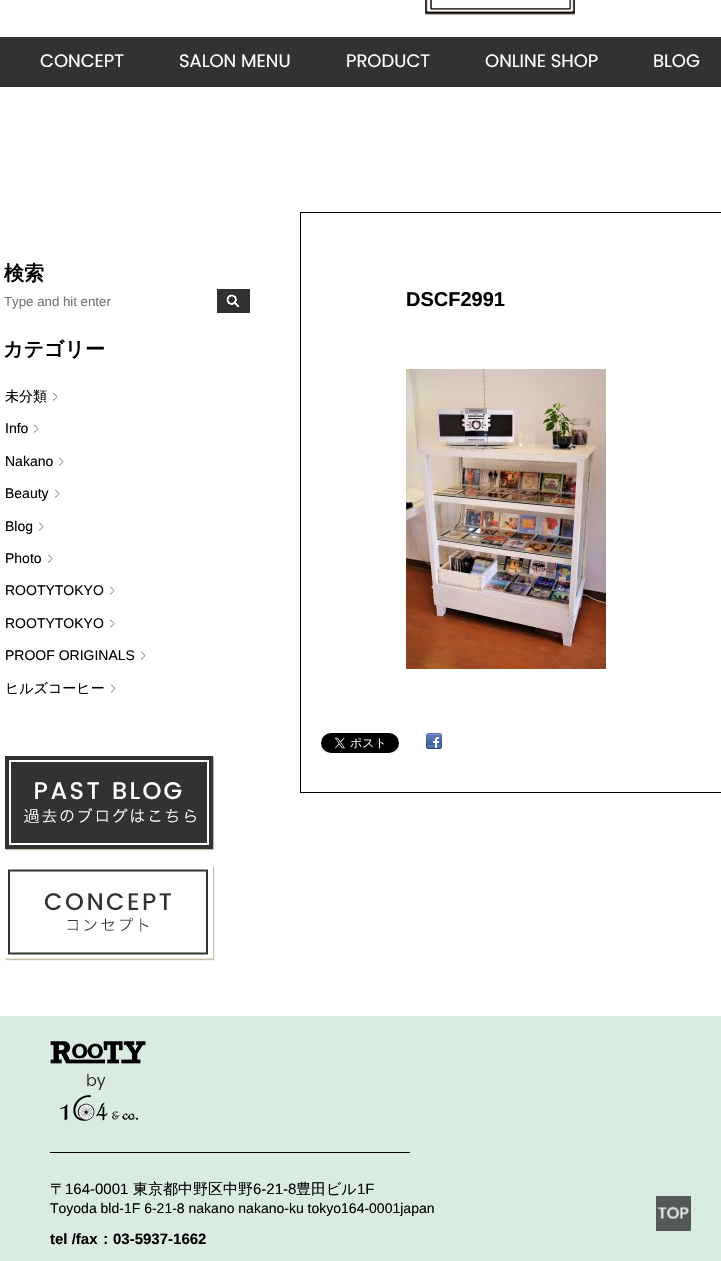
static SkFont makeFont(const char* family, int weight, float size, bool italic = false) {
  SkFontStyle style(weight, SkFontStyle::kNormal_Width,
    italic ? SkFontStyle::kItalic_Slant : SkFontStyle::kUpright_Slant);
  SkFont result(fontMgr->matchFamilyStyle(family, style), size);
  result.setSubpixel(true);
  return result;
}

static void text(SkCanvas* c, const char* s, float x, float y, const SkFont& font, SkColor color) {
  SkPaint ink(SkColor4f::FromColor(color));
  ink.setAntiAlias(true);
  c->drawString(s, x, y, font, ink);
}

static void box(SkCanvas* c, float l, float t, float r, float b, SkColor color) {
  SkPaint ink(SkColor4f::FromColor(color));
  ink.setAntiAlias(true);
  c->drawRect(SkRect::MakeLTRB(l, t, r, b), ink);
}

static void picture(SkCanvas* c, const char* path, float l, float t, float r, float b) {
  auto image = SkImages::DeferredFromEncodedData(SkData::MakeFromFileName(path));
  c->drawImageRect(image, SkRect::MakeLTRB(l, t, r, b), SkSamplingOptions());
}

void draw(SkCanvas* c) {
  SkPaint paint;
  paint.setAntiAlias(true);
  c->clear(0xffffffff);
  picture(c, "img_01.png", 425, 0, 575, 15);
  box(c, 0, 37, 721, 87, 0xff323232);
  SkFont face1 = makeFont("Poppins", 400, 18);
  text(c, "CONCEPT", 40, 67, face1, 0xffffffff);
  text(c, "SALON MENU", 179, 67, face1, 0xffffffff);
  text(c, "PRODUCT", 346, 67, face1, 0xffffffff);
  text(c, "ONLINE SHOP", 485, 67, face1, 0xffffffff);
  text(c, "BLOG", 653, 67, face1, 0xffffffff);
  SkFont face2 = makeFont("WenQuanYi Zen Hei", 700, 20);
  text(c, "検索", 4, 280, face2, 0xff000000);
  SkFont face3 = makeFont("Liberation Sans", 400, 13.25f);
  text(c, "Type and hit enter", 4, 306, face3, 0xff757575);
  picture(c, "img_02.png", 217, 289, 250, 313);
  text(c, "カテゴリー", 3, 356, face2, 0xff000000);
  SkFont face4 = makeFont("WenQuanYi Zen Hei", 500, 14);
  text(c, "未分類", 5, 401, face4, 0xff000000);
  picture(c, "img_03.png", 53, 392, 58, 401);
  SkFont face5 = makeFont("Liberation Sans", 400, 14);
  text(c, "Info", 5, 433, face5, 0xff000000);
  picture(c, "img_03.png", 34, 424, 39, 433);
  text(c, "Nakano", 5, 466, face5, 0xff000000);
  picture(c, "img_03.png", 59, 457, 64, 466);
  text(c, "Beauty", 5, 498, face5, 0xff000000);
  picture(c, "img_03.png", 55, 489, 60, 498);
  text(c, "Blog", 5, 531, face5, 0xff000000);
  picture(c, "img_03.png", 39, 522, 44, 531);
  text(c, "Photo", 5, 563, face5, 0xff000000);
  picture(c, "img_03.png", 48, 554, 53, 563);
  text(c, "ROOTYTOKYO", 5, 595, face5, 0xff000000);
  picture(c, "img_03.png", 110, 586, 115, 595);
  text(c, "ROOTYTOKYO", 5, 628, face5, 0xff000000);
  picture(c, "img_03.png", 110, 619, 115, 628);
  text(c, "PROOF ORIGINALS", 5, 660, face5, 0xff000000);
  picture(c, "img_03.png", 141, 651, 146, 660);
  text(c, "ヒルズコーヒー", 5, 693, face4, 0xff000000);
  picture(c, "img_03.png", 111, 684, 116, 693);
  paint.setColor(0x66786230);
  paint.setMaskFilter(SkMaskFilter::MakeBlur(kNormal_SkBlurStyle, 0.5f));
  c->drawRect(SkRect::MakeLTRB(6, 757, 214, 850), paint);
  paint.setMaskFilter(nullptr);
  picture(c, "img_04.png", 5, 756, 213, 849);
  c->save();
  c->clipPath(SkPathBuilder(SkPathFillType::kEvenOdd).moveTo(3, 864).lineTo(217, 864).lineTo(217, 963).lineTo(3, 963).close().moveTo(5, 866).lineTo(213, 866).lineTo(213, 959).lineTo(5, 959).close().detach(), true);
  paint.setMaskFilter(SkMaskFilter::MakeBlur(kNormal_SkBlurStyle, 0.5f));
  c->drawRect(SkRect::MakeLTRB(6, 867, 214, 960), paint);
  paint.setMaskFilter(nullptr);
  c->restore();
  picture(c, "img_05.png", 5, 869, 212, 959);
  paint.setStyle(SkPaint::kStroke_Style);
  paint.setStrokeWidth(1);
  paint.setColor(0xff000000);
  c->drawRect(SkRect::MakeLTRB(300.5f, 212.5f, 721.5f, 792.5f), paint);
  SkFont face6 = makeFont("Liberation Sans", 700, 20);
  text(c, "DSCF2991", 406, 306, face6, 0xff000000);
  picture(c, "img_06.png", 406, 369, 606, 669);
  picture(c, "img_07.png", 321, 733, 399, 753);
  picture(c, "img_08.png", 426, 733, 442, 749);
  box(c, 0, 1016, 721, 1261, 0xffdaece2);
  picture(c, "img_09.png", 50, 1041, 146, 1121);
  box(c, 50, 1152, 410, 1153, 0xff000000);
  SkFont face7 = makeFont("WenQuanYi Zen Hei", 500, 15);
  text(c, "〒", 50, 1194, face7, 0xff000000);
  SkFont face8 = makeFont("Liberation Sans", 400, 15);
  text(c, "164-0001", 65, 1194, face8, 0xff000000);
  text(c, "東京都中野区中野", 133, 1194, face7, 0xff000000);
  text(c, "6-21-8", 253, 1194, face8, 0xff000000);
  text(c, "豊田ビル", 296, 1194, face7, 0xff000000);
  text(c, "1F", 357, 1194, face8, 0xff000000);
  text(c, "Toyoda bld-1F 6-21-8 nakano nakano-ku tokyo164-0001japan", 50, 1213, face5, 0xff000000);
  SkFont face9 = makeFont("Liberation Sans", 700, 15);
  text(c, "tel /fax", 50, 1244, face9, 0xff000000);
  SkFont face10 = makeFont("WenQuanYi Zen Hei", 700, 15);
  text(c, "：", 98, 1244, face10, 0xff000000);
  text(c, "03-5937-1662", 113, 1244, face9, 0xff000000);
  picture(c, "img_10.png", 656, 1196, 691, 1231);
}
